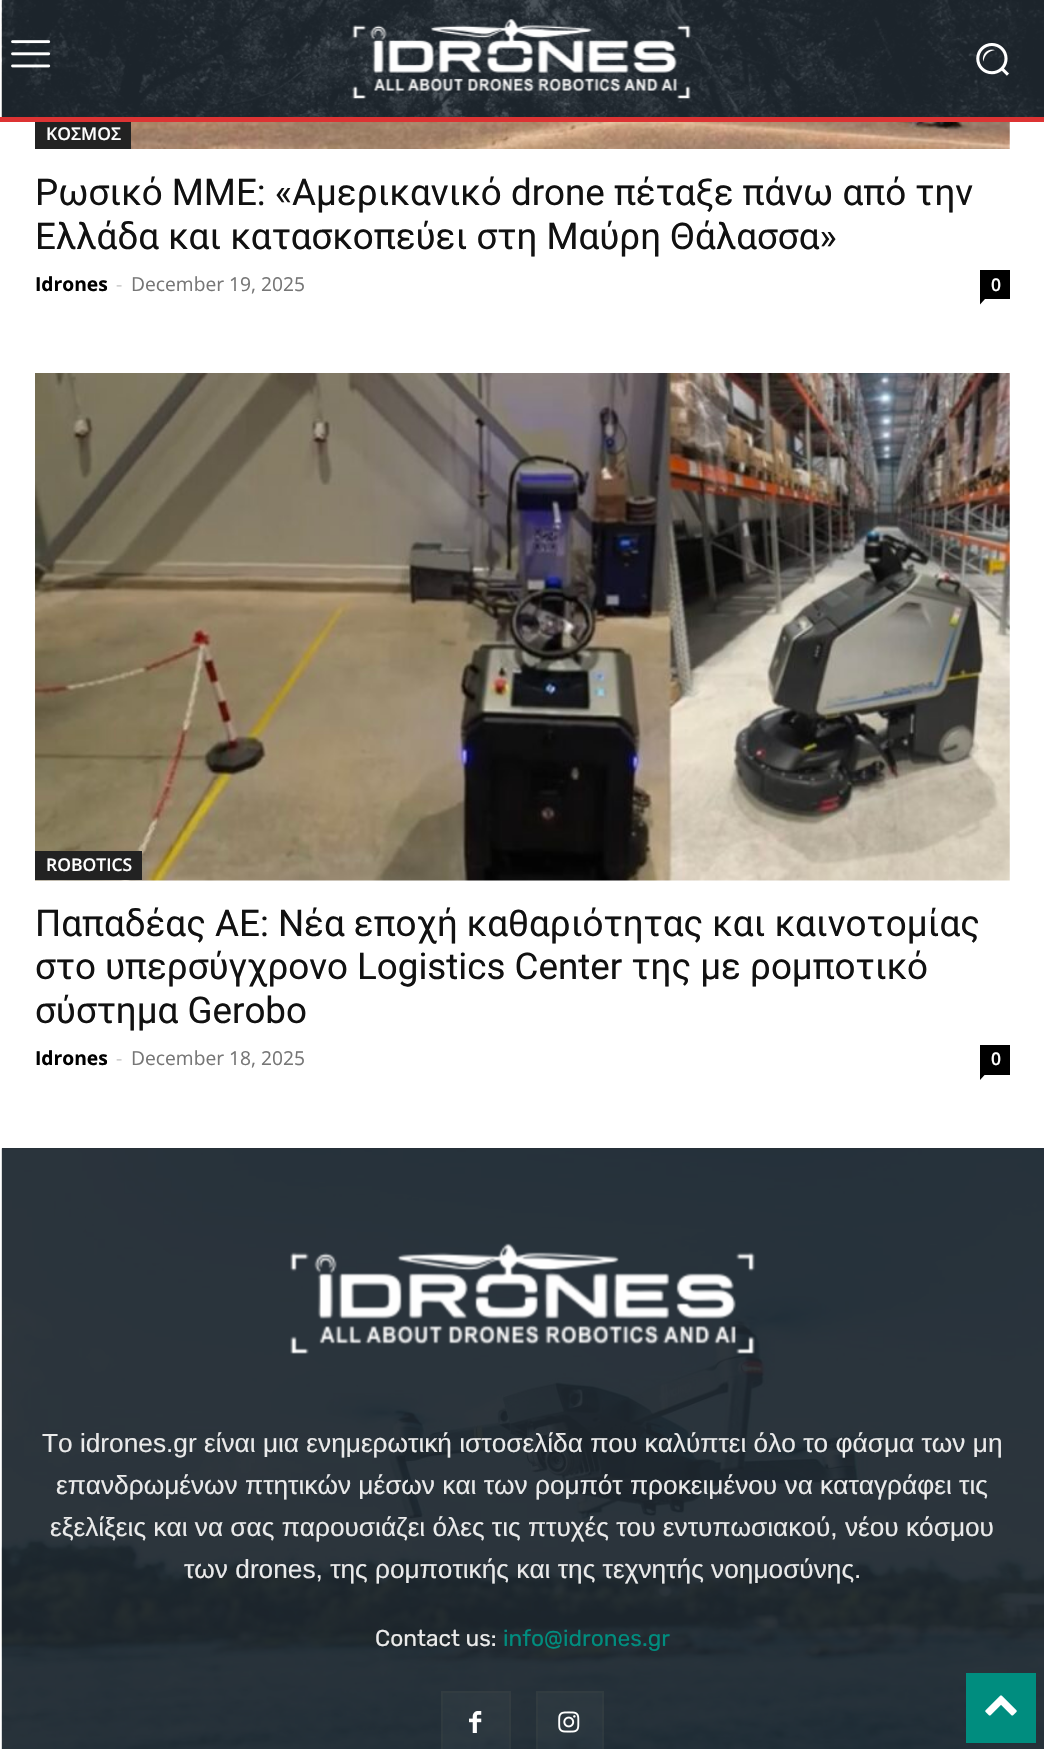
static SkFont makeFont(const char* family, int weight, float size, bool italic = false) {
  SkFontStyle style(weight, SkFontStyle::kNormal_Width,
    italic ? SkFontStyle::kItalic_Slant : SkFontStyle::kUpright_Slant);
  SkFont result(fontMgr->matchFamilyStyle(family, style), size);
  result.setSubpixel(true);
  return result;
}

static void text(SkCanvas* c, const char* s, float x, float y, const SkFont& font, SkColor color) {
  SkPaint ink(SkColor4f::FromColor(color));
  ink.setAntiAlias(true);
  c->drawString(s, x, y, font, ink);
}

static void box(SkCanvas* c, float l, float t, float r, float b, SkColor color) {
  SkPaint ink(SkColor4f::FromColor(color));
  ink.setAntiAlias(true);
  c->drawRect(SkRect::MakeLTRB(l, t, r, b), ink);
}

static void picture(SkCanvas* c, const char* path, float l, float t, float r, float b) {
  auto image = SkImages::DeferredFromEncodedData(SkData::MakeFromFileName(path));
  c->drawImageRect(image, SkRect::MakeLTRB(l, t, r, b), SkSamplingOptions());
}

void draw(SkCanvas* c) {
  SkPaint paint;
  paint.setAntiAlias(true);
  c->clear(0xffffffff);
  box(c, 2, 0, 1044, 117, 0xff232d35);
  picture(c, "img_01.png", 1, 0, 1044, 117);
  picture(c, "img_02.png", 11, 40, 51, 68);
  picture(c, "img_03.png", 352, 19, 691, 99);
  picture(c, "img_04.png", 976, 43, 1009, 76);
  box(c, 0, 117, 1044, 122, 0xffdd3333);
  box(c, 35, 122, 131, 149, 0xff222222);
  SkFont face1 = makeFont("Open Sans", 600, 17.5f);
  text(c, "ΚΟΣΜΟΣ", 46, 140, face1, 0xffffffff);
  picture(c, "img_05.png", 131, 122, 1010, 149);
  SkFont face2 = makeFont("Roboto", 400, 36.75f);
  text(c, "Ρωσικό ΜΜΕ: «Αμερικανικό drone πέταξε πάνω από την", 35, 205, face2, 0xff111111);
  text(c, "Ελλάδα και κατασκοπεύει στη Μαύρη Θάλασσα»", 35, 249, face2, 0xff111111);
  SkFont face3 = makeFont("Open Sans", 700, 19.25f);
  text(c, "Idrones", 35, 291, face3, 0xff000000);
  SkFont face4 = makeFont("Open Sans", 400, 19.25f);
  text(c, "-", 116, 291, face4, 0xffcccccc);
  text(c, "December 19, 2025", 131, 291, face4, 0xff767676);
  box(c, 980, 270, 1010, 299, 0xff000000);
  text(c, "0", 991, 291, face1, 0xffffffff);
  paint.setColor(0xff000000);
  c->drawPath(SkPathBuilder().moveTo(980, 299).lineTo(985, 299).lineTo(980, 304.5f).close().detach(), paint);
  picture(c, "img_06.png", 35, 373, 1010, 881);
  box(c, 35, 851, 142, 880, 0xff222222);
  text(c, "ROBOTICS", 46, 871, face1, 0xffffffff);
  text(c, "Παπαδέας ΑΕ: Νέα εποχή καθαριότητας και καινοτομίας", 35, 936, face2, 0xff111111);
  text(c, "στο υπερσύγχρονο Logistics Center της με ρομποτικό", 35, 979, face2, 0xff111111);
  text(c, "σύστημα Gerobo", 35, 1023, face2, 0xff111111);
  text(c, "Idrones", 35, 1065, face3, 0xff000000);
  text(c, "-", 116, 1065, face4, 0xffcccccc);
  text(c, "December 18, 2025", 131, 1065, face4, 0xff767676);
  box(c, 980, 1045, 1010, 1075, 0xff000000);
  text(c, "0", 991, 1065, face1, 0xffffffff);
  c->drawPath(SkPathBuilder().moveTo(980, 1074.5f).lineTo(985, 1074.5f).lineTo(980, 1080).close().detach(), paint);
  box(c, 2, 1148, 1044, 1749, 0xff232d35);
  picture(c, "img_07.png", 1, 1148, 1044, 1749);
  picture(c, "img_08.png", 290, 1243, 755, 1354);
  SkFont face5 = makeFont("Liberation Sans", 400, 26.25f);
  text(c, "Το idrones.gr είναι μια ενημερωτική ιστοσελίδα που καλύπτει όλο το φάσμα των μη", 42, 1452, face5, 0xffeaeaea);
  text(c, "επανδρωμένων πτητικών μέσων και των ρομπότ προκειμένου να καταγράφει τις", 56, 1494, face5, 0xffeaeaea);
  text(c, "εξελίξεις και να σας παρουσιάζει όλες τις πτυχές του εντυπωσιακού, νέου κόσμου", 50, 1536, face5, 0xffeaeaea);
  text(c, "των drones, της ρομποτικής και της τεχνητής νοημοσύνης.", 184, 1578, face5, 0xffeaeaea);
  SkFont face6 = makeFont("Rubik", 400, 22.75f);
  text(c, "Contact us:", 375, 1646, face6, 0xffeaeaea);
  text(c, "info@idrones.gr", 503, 1646, face6, 0xff008d7f);
  box(c, 441, 1691, 511, 1749, 0x08ffffff);
  paint.setStyle(SkPaint::kStroke_Style);
  paint.setStrokeWidth(2);
  paint.setColor(0x08cb9558);
  c->drawRect(SkRect::MakeLTRB(442, 1692, 510, 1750), paint);
  picture(c, "img_09.png", 469, 1711, 482, 1733);
  box(c, 536, 1691, 604, 1749, 0x08ffffff);
  c->drawRect(SkRect::MakeLTRB(537, 1692, 603, 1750), paint);
  picture(c, "img_10.png", 558, 1711, 580, 1733);
  box(c, 966, 1673, 1036, 1743, 0xff008d7f);
  picture(c, "img_11.png", 985, 1695, 1017, 1716);
}
